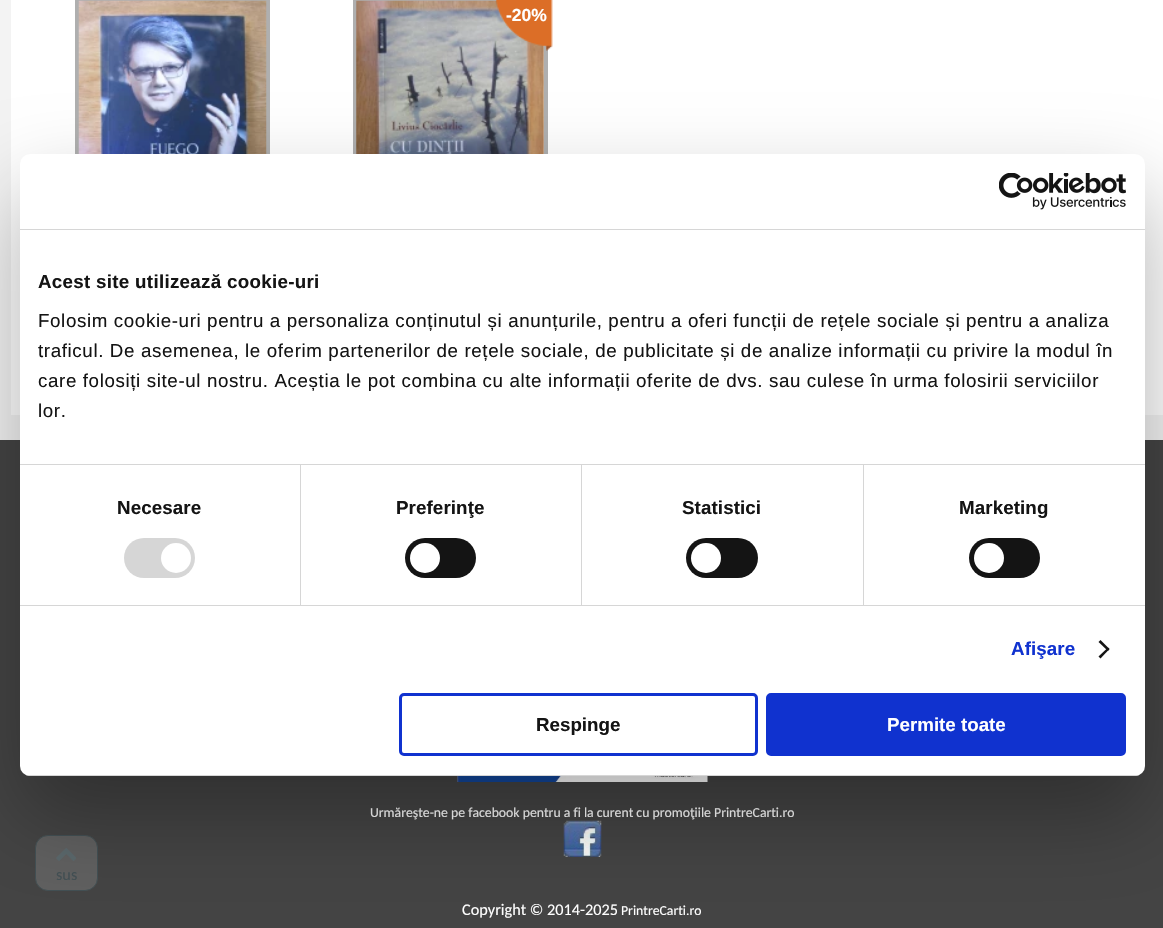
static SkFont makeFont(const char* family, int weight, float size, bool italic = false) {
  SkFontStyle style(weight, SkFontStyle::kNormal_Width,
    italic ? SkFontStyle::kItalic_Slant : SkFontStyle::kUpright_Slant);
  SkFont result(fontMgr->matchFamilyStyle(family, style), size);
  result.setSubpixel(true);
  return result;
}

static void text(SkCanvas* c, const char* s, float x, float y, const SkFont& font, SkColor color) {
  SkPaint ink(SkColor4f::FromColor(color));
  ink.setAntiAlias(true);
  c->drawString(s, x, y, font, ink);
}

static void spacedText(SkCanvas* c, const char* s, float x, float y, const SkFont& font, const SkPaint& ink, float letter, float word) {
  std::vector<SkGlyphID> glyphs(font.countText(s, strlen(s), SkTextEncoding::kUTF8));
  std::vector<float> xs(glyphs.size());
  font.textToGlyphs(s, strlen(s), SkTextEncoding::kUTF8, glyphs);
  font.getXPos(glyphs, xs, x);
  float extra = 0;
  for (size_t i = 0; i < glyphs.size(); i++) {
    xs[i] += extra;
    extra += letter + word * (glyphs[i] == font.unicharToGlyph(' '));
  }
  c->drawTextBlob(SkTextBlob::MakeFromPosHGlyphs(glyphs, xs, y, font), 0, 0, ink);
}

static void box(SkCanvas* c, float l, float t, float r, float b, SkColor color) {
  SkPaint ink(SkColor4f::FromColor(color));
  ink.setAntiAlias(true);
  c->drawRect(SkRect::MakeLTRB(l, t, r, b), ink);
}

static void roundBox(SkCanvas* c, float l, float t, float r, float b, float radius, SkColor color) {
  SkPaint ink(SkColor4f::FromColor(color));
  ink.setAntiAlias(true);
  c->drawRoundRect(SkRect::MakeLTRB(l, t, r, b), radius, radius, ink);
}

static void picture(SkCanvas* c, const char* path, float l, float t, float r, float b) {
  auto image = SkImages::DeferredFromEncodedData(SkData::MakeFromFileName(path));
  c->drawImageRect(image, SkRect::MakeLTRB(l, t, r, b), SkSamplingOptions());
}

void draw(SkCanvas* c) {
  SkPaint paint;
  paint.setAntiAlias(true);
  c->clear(0xfff3f3f3);
  box(c, 11, 0, 1163, 415, 0xffffffff);
  paint.setStyle(SkPaint::kStroke_Style);
  paint.setStrokeWidth(4);
  paint.setColor(0xffafafaf);
  c->drawRect(SkRect::MakeLTRB(77, 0, 268, 253), paint);
  picture(c, "img_01.png", 78, 0, 267, 154);
  c->drawRect(SkRect::MakeLTRB(355, 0, 546, 253), paint);
  picture(c, "img_02.png", 356, 0, 544, 154);
  picture(c, "img_03.png", 496, 0, 553, 51);
  SkFont face1 = makeFont("Liberation Sans", 700, 17.5f);
  text(c, "-20%", 506, 21, face1, 0xffffffff);
  box(c, 0, 440, 1163, 928, 0xff444444);
  paint.setStyle(SkPaint::kFill_Style);
  paint.setColor(0xff606060);
  c->drawRoundRect(SkRect::MakeLTRB(35.5f, 835.5f, 97.5f, 890.5f), 12.5f, 12.5f, paint);
  paint.setStyle(SkPaint::kStroke_Style);
  paint.setStrokeWidth(1);
  paint.setColor(0xff435054);
  c->drawRoundRect(SkRect::MakeLTRB(35.5f, 835.5f, 97.5f, 890.5f), 12.5f, 12.5f, paint);
  picture(c, "img_04.png", 56, 848, 76, 861);
  SkFont face2 = makeFont("Carlito", 400, 16.25f);
  text(c, "sus", 56, 880, face2, 0xff435054);
  picture(c, "img_05.png", 457, 776, 708, 782);
  SkFont face3 = makeFont("Carlito", 400, 13.75f);
  text(c, "Urmăreşte-ne pe facebook pentru a fi la curent cu promoţiile PrintreCarti.ro", 370, 817, face3, 0xffffffff);
  picture(c, "img_06.png", 563, 820, 602, 857);
  text(c, "Copyright © 2014-2025", 462, 915, face2, 0xffffffff);
  text(c, "PrintreCarti.ro", 621, 915, face3, 0xffffffff);
  paint.setStyle(SkPaint::kFill_Style);
  paint.setColor(0x4d000000);
  paint.setMaskFilter(SkMaskFilter::MakeBlur(kNormal_SkBlurStyle, 42.5f));
  c->drawRoundRect(SkRect::MakeLTRB(20, 194, 1145, 816), 10, 10, paint);
  paint.setMaskFilter(nullptr);
  roundBox(c, 20, 154, 1145, 776, 10, 0xffffffff);
  box(c, 20, 229, 1145, 230, 0xffd6d6d6);
  picture(c, "img_07.png", 999, 173, 1126, 210);
  box(c, 20, 464, 1145, 465, 0xffd6d6d6);
  SkFont face4 = makeFont("Liberation Sans", 700, 18.75f);
  paint.setColor(0xff141414);
  spacedText(c, "Acest site utilizează cookie-uri", 38, 288, face4, paint, 0.3f, 0);
  SkFont face5 = makeFont("Liberation Sans", 400, 18.75f);
  spacedText(c, "Folosim cookie-uri pentru a personaliza conținutul și anunțurile, pentru a oferi funcții de rețele sociale și pentru a analiza", 38, 327, face5, paint, 0.62f, 0);
  spacedText(c, "traficul. De asemenea, le oferim partenerilor de rețele sociale, de publicitate și de analize informații cu privire la modul în", 38, 357, face5, paint, 0.62f, 0);
  spacedText(c, "care folosiți site-ul nostru. Aceștia le pot combina cu alte informații oferite de dvs. sau culese în urma folosirii serviciilor", 38, 387, face5, paint, 0.62f, 0);
  spacedText(c, "lor.", 38, 417, face5, paint, 0.62f, 0);
  box(c, 20, 605, 1145, 606, 0xffd6d6d6);
  box(c, 300, 465, 301, 605, 0xffd6d6d6);
  spacedText(c, "Necesare", 117, 514, face4, paint, 0.1f, 0);
  roundBox(c, 124, 538, 195, 578, 20, 0xffd6d6d6);
  paint.setColor(0xffffffff);
  c->drawCircle(176, 558, 15, paint);
  box(c, 581, 465, 582, 605, 0xffd6d6d6);
  paint.setColor(0xff141414);
  spacedText(c, "Preferinţe", 396, 514, face4, paint, 0.1f, 0);
  roundBox(c, 405, 538, 476, 578, 20, 0xff141414);
  paint.setColor(0xffffffff);
  c->drawCircle(425, 558, 15, paint);
  box(c, 863, 465, 864, 605, 0xffd6d6d6);
  paint.setColor(0xff141414);
  spacedText(c, "Statistici", 682, 514, face4, paint, 0.1f, 0);
  roundBox(c, 686, 538, 758, 578, 20, 0xff141414);
  paint.setColor(0xffffffff);
  c->drawCircle(706, 558, 15, paint);
  paint.setColor(0xff141414);
  spacedText(c, "Marketing", 959, 514, face4, paint, 0.1f, 0);
  roundBox(c, 969, 538, 1040, 578, 20, 0xff141414);
  paint.setColor(0xffffffff);
  c->drawCircle(989, 558, 15, paint);
  paint.setColor(0xff1032cf);
  spacedText(c, "Afişare", 1011, 655, face4, paint, 0.1f, 0);
  paint.setColor(0xff141414);
  c->drawPath(SkPathBuilder().moveTo(1100.5f, 640).lineTo(1109.5f, 649).lineTo(1108, 651).lineTo(1098.5f, 642).close().detach(), paint);
  c->drawPath(SkPathBuilder().moveTo(1108, 647.5f).lineTo(1109.5f, 649).lineTo(1100.5f, 658.5f).lineTo(1098.5f, 656.5f).close().detach(), paint);
  c->save();
  c->clipPath(SkPathBuilder().moveTo(30, 154).lineTo(1135, 154).cubicTo(1140.5f, 154, 1145, 158.5f, 1145, 164).lineTo(1145, 766).cubicTo(1145, 771.5f, 1140.5f, 776, 1135, 776).lineTo(30, 776).cubicTo(24.5f, 776, 20, 771.5f, 20, 766).lineTo(20, 164).cubicTo(20, 158.5f, 24.5f, 154, 30, 154).close().detach(), true);
  box(c, 20, 775, 1145, 776, 0xffd6d6d6);
  c->restore();
  paint.setStyle(SkPaint::kStroke_Style);
  paint.setStrokeWidth(3);
  paint.setColor(0xff1032cf);
  c->drawRoundRect(SkRect::MakeLTRB(400.5f, 694.5f, 756.5f, 754.5f), 3.5f, 3.5f, paint);
  text(c, "Respinge", 536, 731, face4, 0xff141414);
  paint.setStyle(SkPaint::kFill_Style);
  c->drawRoundRect(SkRect::MakeLTRB(767.5f, 694.5f, 1124.5f, 754.5f), 3.5f, 3.5f, paint);
  paint.setStyle(SkPaint::kStroke_Style);
  c->drawRoundRect(SkRect::MakeLTRB(767.5f, 694.5f, 1124.5f, 754.5f), 3.5f, 3.5f, paint);
  text(c, "Permite toate", 887, 731, face4, 0xffffffff);
}
